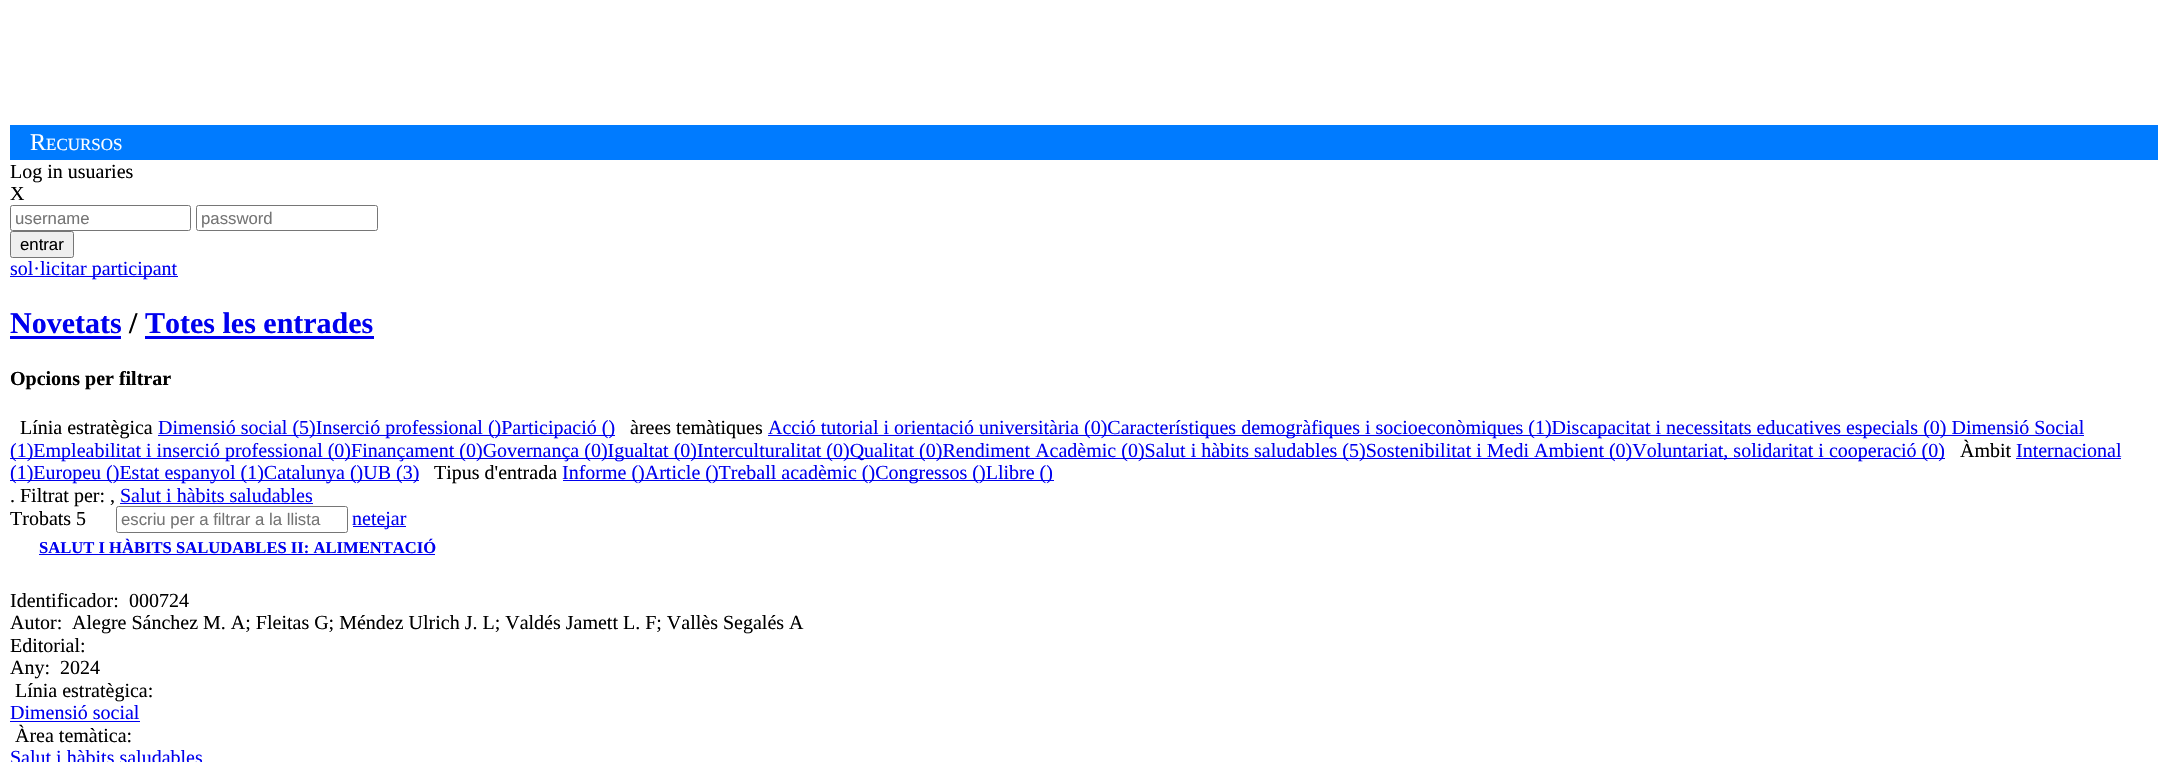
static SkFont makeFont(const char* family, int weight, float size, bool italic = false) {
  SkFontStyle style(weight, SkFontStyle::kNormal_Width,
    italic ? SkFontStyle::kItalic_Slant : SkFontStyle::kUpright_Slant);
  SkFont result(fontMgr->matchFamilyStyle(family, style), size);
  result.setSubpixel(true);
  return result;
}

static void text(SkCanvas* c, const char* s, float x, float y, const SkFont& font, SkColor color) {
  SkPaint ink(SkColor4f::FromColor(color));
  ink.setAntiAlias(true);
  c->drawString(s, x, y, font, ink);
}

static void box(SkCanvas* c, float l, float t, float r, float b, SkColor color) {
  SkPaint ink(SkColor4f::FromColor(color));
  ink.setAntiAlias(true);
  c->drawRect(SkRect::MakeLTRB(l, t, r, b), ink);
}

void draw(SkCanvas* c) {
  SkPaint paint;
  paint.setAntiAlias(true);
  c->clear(0xffffffff);
  box(c, 10, 125, 2158, 160, 0xff007bff);
  SkFont face1 = makeFont("Liberation Serif", 400, 24);
  text(c, "R", 30, 150, face1, 0xffffffff);
  SkFont face2 = makeFont("Liberation Serif", 400, 17);
  text(c, "ECURSOS", 46, 150, face2, 0xffffffff);
  SkFont face3 = makeFont("Liberation Serif", 400, 20);
  text(c, "Log in usuaries", 10, 178, face3, 0xff000000);
  text(c, "X", 10, 200, face3, 0xff000000);
  paint.setStyle(SkPaint::kStroke_Style);
  paint.setStrokeWidth(1);
  paint.setColor(0xff767676);
  c->drawRoundRect(SkRect::MakeLTRB(10.5f, 205.5f, 190.5f, 230.5f), 2, 2, paint);
  SkFont face4 = makeFont("Liberation Sans", 400, 16.75f);
  text(c, "username", 15, 224, face4, 0xff757575);
  c->drawRoundRect(SkRect::MakeLTRB(196.5f, 205.5f, 377.5f, 230.5f), 2, 2, paint);
  text(c, "password", 201, 224, face4, 0xff757575);
  paint.setStyle(SkPaint::kFill_Style);
  paint.setColor(0xffefefef);
  c->drawRoundRect(SkRect::MakeLTRB(10.5f, 231.5f, 73.5f, 257.5f), 2, 2, paint);
  paint.setStyle(SkPaint::kStroke_Style);
  paint.setColor(0xff767676);
  c->drawRoundRect(SkRect::MakeLTRB(10.5f, 231.5f, 73.5f, 257.5f), 2, 2, paint);
  text(c, "entrar", 20, 250, face4, 0xff000000);
  box(c, 10, 276, 178, 277, 0xff0000ee);
  text(c, "sol·licitar participant", 10, 275, face3, 0xff0000ee);
  SkFont face5 = makeFont("Liberation Serif", 700, 30);
  text(c, "Novetats", 10, 333, face5, 0xff0000ee);
  box(c, 10, 336, 121, 339, 0xff0000ee);
  text(c, "/", 129, 333, face5, 0xff000000);
  text(c, "Totes les entrades", 145, 333, face5, 0xff0000ee);
  box(c, 145, 336, 374, 339, 0xff0000ee);
  SkFont face6 = makeFont("Liberation Serif", 700, 20);
  text(c, "Opcions per filtrar", 10, 385, face6, 0xff000000);
  text(c, "Línia estratègica", 20, 434, face3, 0xff000000);
  box(c, 158, 435, 615, 436, 0xff0000ee);
  text(c, "Dimensió social (5)Inserció professional ()Participació ()", 158, 434, face3, 0xff0000ee);
  text(c, "àrees temàtiques", 630, 434, face3, 0xff000000);
  box(c, 768, 435, 2084, 436, 0xff0000ee);
  text(c, "Acció tutorial i orientació universitària (0)Característiques demogràfiques i socioeconòmiques (1)Discapacitat i necessitats educatives especials (0) Dimensió Social", 768, 434, face3, 0xff0000ee);
  box(c, 10, 458, 1945, 459, 0xff0000ee);
  text(c, "(1)Empleabilitat i inserció professional (0)Finançament (0)Governança (0)Igualtat (0)Interculturalitat (0)Qualitat (0)Rendiment Acadèmic (0)Salut i hàbits saludables (5)Sostenibilitat i Medi Ambient (0)Voluntariat, solidaritat i cooperació (0)", 10, 457, face3, 0xff0000ee);
  text(c, "Àmbit", 1960, 457, face3, 0xff000000);
  text(c, "Internacional", 2016, 457, face3, 0xff0000ee);
  box(c, 2016, 458, 2121, 459, 0xff0000ee);
  box(c, 10, 480, 419, 481, 0xff0000ee);
  text(c, "(1)Europeu ()Estat espanyol (1)Catalunya ()UB (3)", 10, 479, face3, 0xff0000ee);
  text(c, "Tipus d'entrada", 434, 479, face3, 0xff000000);
  box(c, 563, 480, 1054, 481, 0xff0000ee);
  text(c, "Informe ()Article ()Treball acadèmic ()Congressos ()Llibre ()", 562, 479, face3, 0xff0000ee);
  text(c, ". Filtrat per: ,", 10, 502, face3, 0xff000000);
  text(c, "Salut i hàbits saludables", 120, 502, face3, 0xff0000ee);
  box(c, 120, 503, 313, 504, 0xff0000ee);
  text(c, "Trobats 5", 10, 525, face3, 0xff000000);
  c->drawRoundRect(SkRect::MakeLTRB(116.5f, 506.5f, 347.5f, 532.5f), 2, 2, paint);
  text(c, "escriu per a filtrar a la llista", 121, 525, face4, 0xff757575);
  box(c, 353, 526, 406, 527, 0xff0000ee);
  text(c, "netejar", 352, 525, face3, 0xff0000ee);
  SkFont face7 = makeFont("Liberation Serif", 700, 16.6f);
  text(c, "SALUT I HÀBITS SALUDABLES II: ALIMENTACIÓ", 39, 553, face7, 0xff0000ee);
  box(c, 39, 554, 435, 555, 0xff0000ee);
  text(c, "Identificador:", 10, 607, face3, 0xff000000);
  text(c, "000724", 129, 607, face3, 0xff000000);
  text(c, "Autor:", 10, 629, face3, 0xff000000);
  text(c, "Alegre Sánchez M. A; Fleitas G; Méndez Ulrich J. L; Valdés Jamett L. F; Vallès Segalés A", 72, 629, face3, 0xff000000);
  text(c, "Editorial:", 10, 652, face3, 0xff000000);
  text(c, "Any:", 10, 674, face3, 0xff000000);
  text(c, "2024", 60, 674, face3, 0xff000000);
  text(c, "Línia estratègica:", 15, 697, face3, 0xff000000);
  text(c, "Dimensió social", 10, 719, face3, 0xff0000ee);
  box(c, 10, 721, 140, 722, 0xff0000ee);
  text(c, "Àrea temàtica:", 15, 742, face3, 0xff000000);
  text(c, "Salut i hàbits saludables", 10, 764, face3, 0xff0000ee);
}
